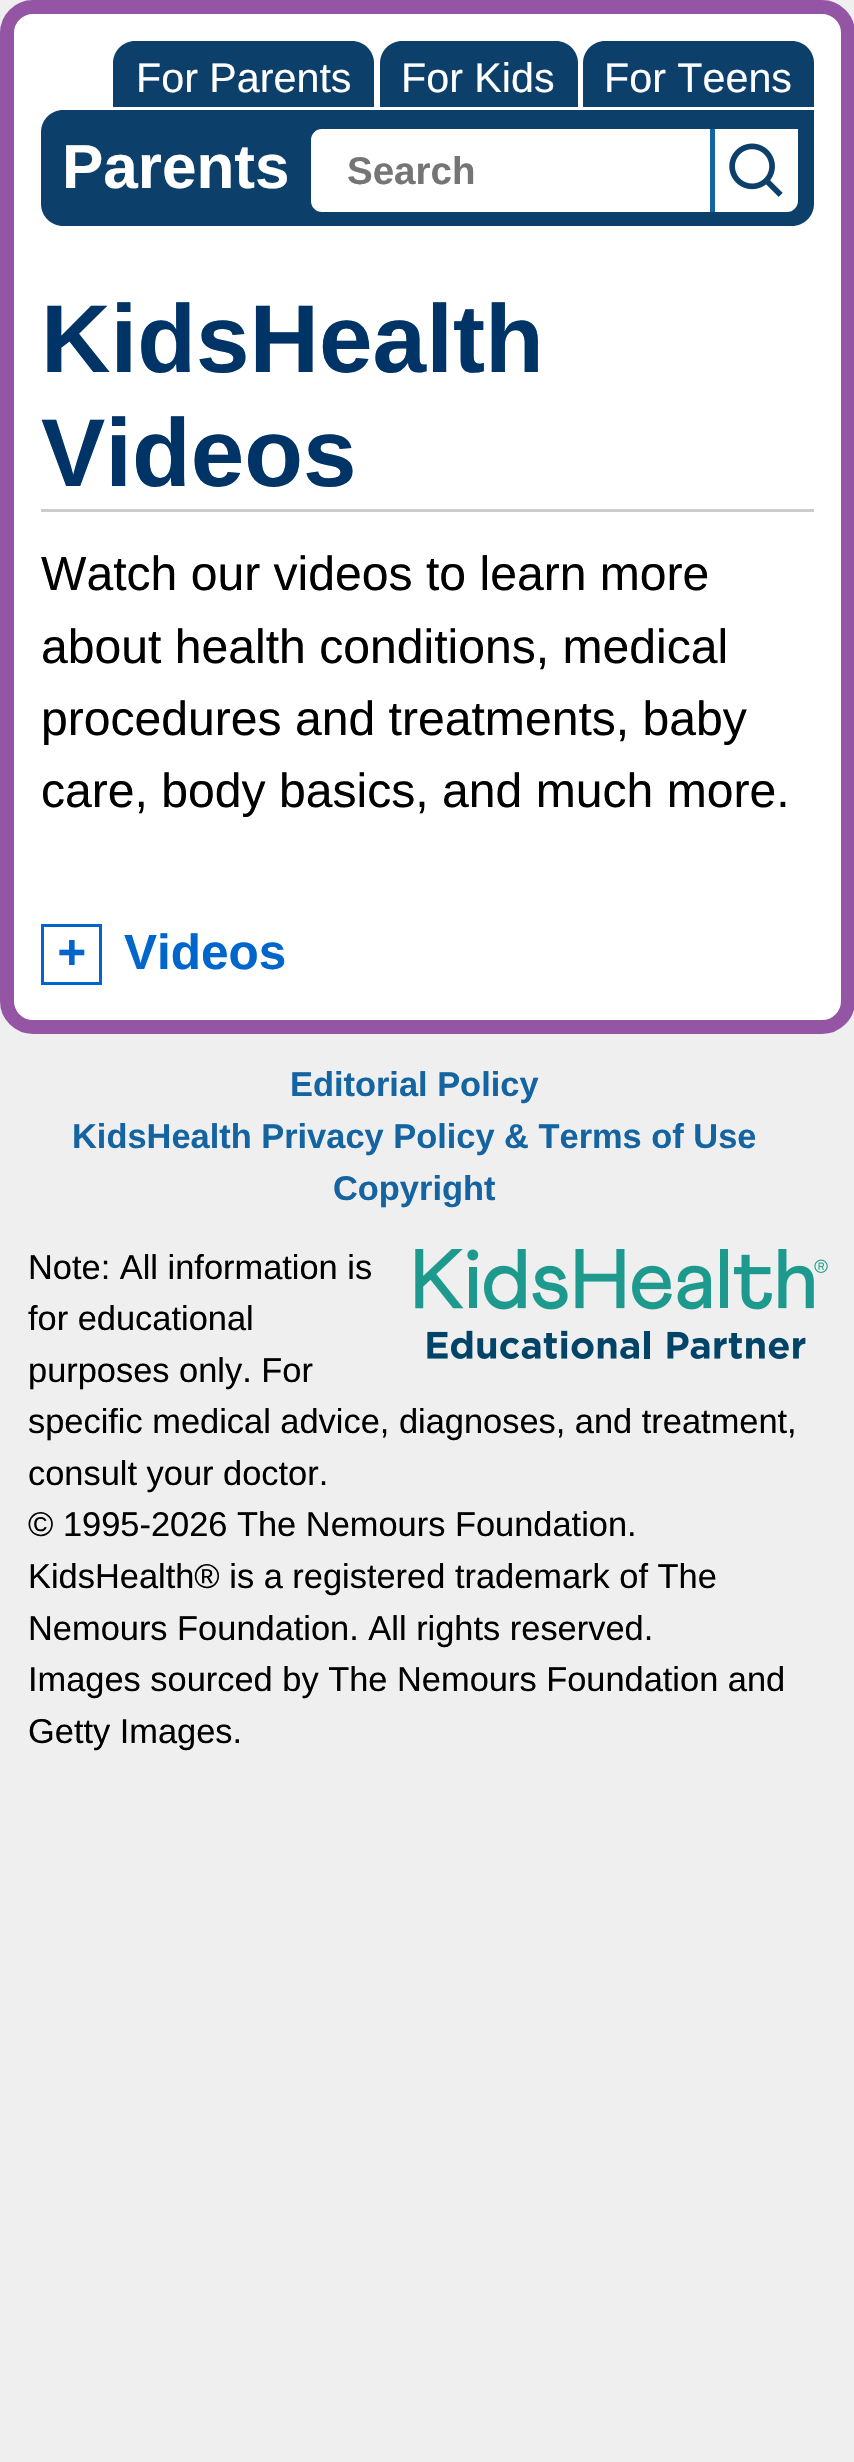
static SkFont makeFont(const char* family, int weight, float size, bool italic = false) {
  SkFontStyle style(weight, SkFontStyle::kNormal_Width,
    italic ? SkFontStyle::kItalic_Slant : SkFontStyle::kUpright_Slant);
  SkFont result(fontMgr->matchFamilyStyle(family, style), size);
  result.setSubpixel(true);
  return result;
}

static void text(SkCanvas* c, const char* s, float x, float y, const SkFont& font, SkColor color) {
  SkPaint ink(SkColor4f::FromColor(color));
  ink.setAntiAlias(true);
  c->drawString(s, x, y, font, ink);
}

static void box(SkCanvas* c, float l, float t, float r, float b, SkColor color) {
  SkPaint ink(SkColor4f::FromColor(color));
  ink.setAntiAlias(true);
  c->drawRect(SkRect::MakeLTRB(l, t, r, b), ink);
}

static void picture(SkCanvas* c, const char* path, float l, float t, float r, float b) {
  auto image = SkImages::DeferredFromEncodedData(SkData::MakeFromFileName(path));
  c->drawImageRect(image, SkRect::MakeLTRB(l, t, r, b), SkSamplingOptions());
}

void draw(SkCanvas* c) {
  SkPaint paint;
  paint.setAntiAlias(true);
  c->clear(0xffefefef);
  paint.setColor(0xffffffff);
  c->drawRoundRect(SkRect::MakeLTRB(7, 7, 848, 1027), 26, 26, paint);
  paint.setStyle(SkPaint::kStroke_Style);
  paint.setStrokeWidth(14);
  paint.setColor(0xff9555a5);
  c->drawRoundRect(SkRect::MakeLTRB(7, 7, 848, 1027), 26, 26, paint);
  paint.setStyle(SkPaint::kFill_Style);
  paint.setColor(0xff0d3f6b);
  c->drawPath(SkPathBuilder().moveTo(135, 41).lineTo(352, 41).cubicTo(364, 41, 374, 51, 374, 63).lineTo(374, 107).lineTo(113, 107).lineTo(113, 63).cubicTo(113, 51, 123, 41, 135, 41).close().detach(), paint);
  SkFont face1 = makeFont("Liberation Sans", 400, 41.25f);
  text(c, "For Parents", 136, 92, face1, 0xffffffff);
  c->drawPath(SkPathBuilder().moveTo(402, 41).lineTo(556, 41).cubicTo(568, 41, 578, 51, 578, 63).lineTo(578, 107).lineTo(380, 107).lineTo(380, 63).cubicTo(380, 51, 390, 41, 402, 41).close().detach(), paint);
  text(c, "For Kids", 401, 92, face1, 0xffffffff);
  c->drawPath(SkPathBuilder().moveTo(605, 41).lineTo(792, 41).cubicTo(804, 41, 814, 51, 814, 63).lineTo(814, 107).lineTo(583, 107).lineTo(583, 63).cubicTo(583, 51, 593, 41, 605, 41).close().detach(), paint);
  text(c, "For Teens", 604, 92, face1, 0xffffffff);
  c->drawPath(SkPathBuilder().moveTo(63, 110).lineTo(814, 110).lineTo(814, 204).cubicTo(814, 216, 804, 226, 792, 226).lineTo(63, 226).cubicTo(51, 226, 41, 216, 41, 204).lineTo(41, 132).cubicTo(41, 120, 51, 110, 63, 110).close().detach(), paint);
  SkFont face2 = makeFont("Liberation Sans", 700, 62);
  text(c, "Parents", 62, 188, face2, 0xffffffff);
  paint.setColor(0xffffffff);
  c->drawPath(SkPathBuilder().moveTo(322, 137.5f).lineTo(701.5f, 137.5f).lineTo(701.5f, 203.5f).lineTo(322, 203.5f).cubicTo(320.5f, 203.5f, 319.5f, 202.5f, 319.5f, 201).lineTo(319.5f, 140).cubicTo(319.5f, 138.5f, 320.5f, 137.5f, 322, 137.5f).close().detach(), paint);
  paint.setStyle(SkPaint::kStroke_Style);
  paint.setStrokeWidth(17);
  c->drawPath(SkPathBuilder().moveTo(322, 137.5f).lineTo(701.5f, 137.5f).lineTo(701.5f, 203.5f).lineTo(322, 203.5f).cubicTo(320.5f, 203.5f, 319.5f, 202.5f, 319.5f, 201).lineTo(319.5f, 140).cubicTo(319.5f, 138.5f, 320.5f, 137.5f, 322, 137.5f).close().detach(), paint);
  SkFont face3 = makeFont("Liberation Sans", 700, 38.5f);
  text(c, "Search", 347, 184, face3, 0xff757575);
  box(c, 710, 129, 715, 212, 0xff1564a2);
  paint.setStyle(SkPaint::kFill_Style);
  c->drawPath(SkPathBuilder().moveTo(715, 129).lineTo(798, 129).lineTo(798, 201).cubicTo(798, 207, 793, 212, 787, 212).lineTo(715, 212).close().detach(), paint);
  picture(c, "img_01.png", 729, 143, 783, 197);
  box(c, 41, 509, 814, 512, 0xffcccccc);
  SkFont face4 = makeFont("Liberation Sans", 700, 96.25f);
  text(c, "KidsHealth", 41, 372, face4, 0xff003366);
  text(c, "Videos", 41, 486, face4, 0xff003366);
  SkFont face5 = makeFont("Liberation Sans", 400, 48.1f);
  text(c, "Watch our videos to learn more", 41, 590, face5, 0xff000000);
  text(c, "about health conditions, medical", 41, 663, face5, 0xff000000);
  text(c, "procedures and treatments, baby", 41, 735, face5, 0xff000000);
  text(c, "care, body basics, and much more.", 41, 807, face5, 0xff000000);
  paint.setStyle(SkPaint::kStroke_Style);
  paint.setStrokeWidth(3);
  paint.setColor(0xff0066cc);
  c->drawRect(SkRect::MakeLTRB(42.5f, 925.5f, 100.5f, 983.5f), paint);
  SkFont face6 = makeFont("Liberation Mono", 700, 49.5f);
  text(c, "+", 57, 969, face6, 0xff0066cc);
  SkFont face7 = makeFont("Liberation Sans", 700, 49.5f);
  text(c, "Videos", 124, 969, face7, 0xff0066cc);
  SkFont face8 = makeFont("Liberation Sans", 700, 34.4f);
  text(c, "Editorial Policy", 290, 1096, face8, 0xff1564a2);
  text(c, "KidsHealth Privacy Policy & Terms of Use", 72, 1148, face8, 0xff1564a2);
  text(c, "Copyright", 333, 1200, face8, 0xff1564a2);
  SkFont face9 = makeFont("Liberation Sans", 400, 34.4f);
  text(c, "Note: All information is", 28, 1279, face9, 0xff000000);
  picture(c, "img_02.png", 415, 1249, 828, 1359);
  text(c, "for educational", 28, 1330, face9, 0xff000000);
  text(c, "purposes only. For", 28, 1382, face9, 0xff000000);
  text(c, "specific medical advice, diagnoses, and treatment,", 28, 1433, face9, 0xff000000);
  text(c, "consult your doctor.", 28, 1485, face9, 0xff000000);
  text(c, "© 1995-2026 The Nemours Foundation.", 28, 1536, face9, 0xff000000);
  text(c, "KidsHealth® is a registered trademark of The", 28, 1588, face9, 0xff000000);
  text(c, "Nemours Foundation. All rights reserved.", 28, 1640, face9, 0xff000000);
  text(c, "Images sourced by The Nemours Foundation and", 28, 1691, face9, 0xff000000);
  text(c, "Getty Images.", 28, 1743, face9, 0xff000000);
}
